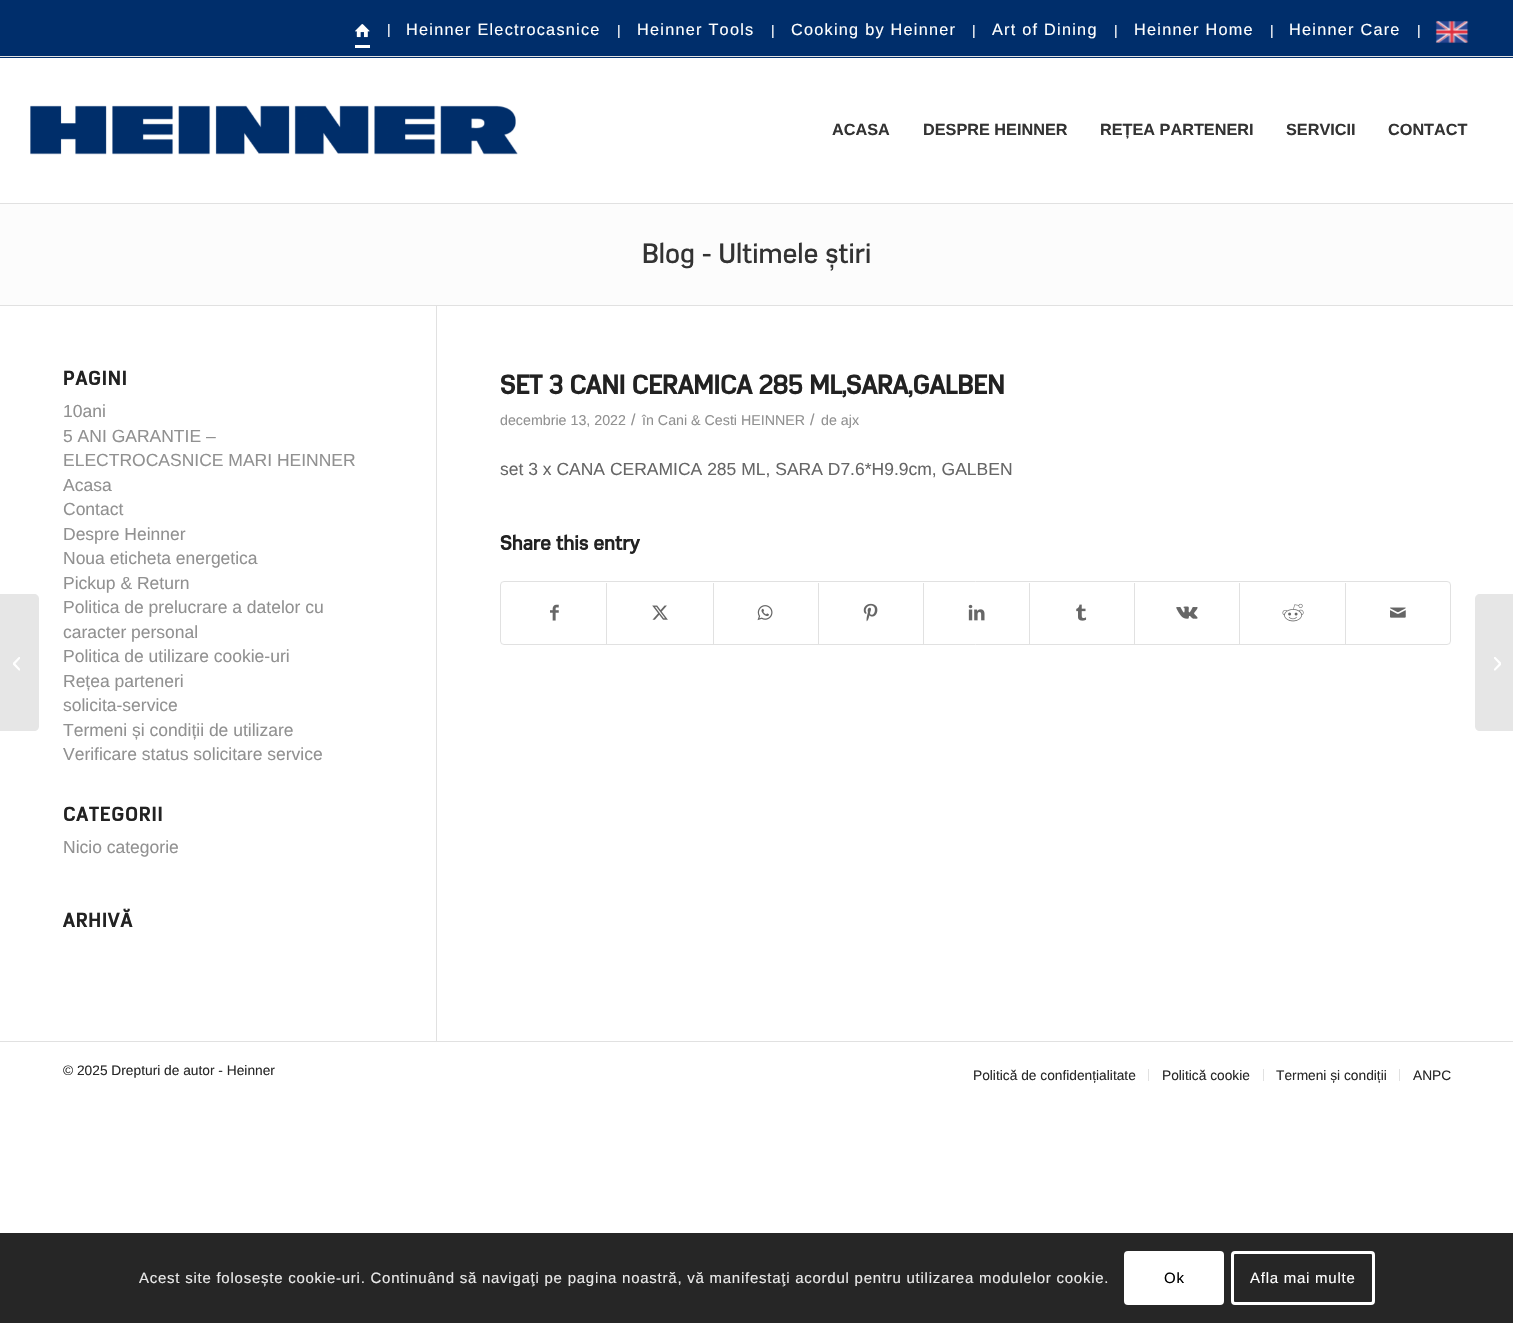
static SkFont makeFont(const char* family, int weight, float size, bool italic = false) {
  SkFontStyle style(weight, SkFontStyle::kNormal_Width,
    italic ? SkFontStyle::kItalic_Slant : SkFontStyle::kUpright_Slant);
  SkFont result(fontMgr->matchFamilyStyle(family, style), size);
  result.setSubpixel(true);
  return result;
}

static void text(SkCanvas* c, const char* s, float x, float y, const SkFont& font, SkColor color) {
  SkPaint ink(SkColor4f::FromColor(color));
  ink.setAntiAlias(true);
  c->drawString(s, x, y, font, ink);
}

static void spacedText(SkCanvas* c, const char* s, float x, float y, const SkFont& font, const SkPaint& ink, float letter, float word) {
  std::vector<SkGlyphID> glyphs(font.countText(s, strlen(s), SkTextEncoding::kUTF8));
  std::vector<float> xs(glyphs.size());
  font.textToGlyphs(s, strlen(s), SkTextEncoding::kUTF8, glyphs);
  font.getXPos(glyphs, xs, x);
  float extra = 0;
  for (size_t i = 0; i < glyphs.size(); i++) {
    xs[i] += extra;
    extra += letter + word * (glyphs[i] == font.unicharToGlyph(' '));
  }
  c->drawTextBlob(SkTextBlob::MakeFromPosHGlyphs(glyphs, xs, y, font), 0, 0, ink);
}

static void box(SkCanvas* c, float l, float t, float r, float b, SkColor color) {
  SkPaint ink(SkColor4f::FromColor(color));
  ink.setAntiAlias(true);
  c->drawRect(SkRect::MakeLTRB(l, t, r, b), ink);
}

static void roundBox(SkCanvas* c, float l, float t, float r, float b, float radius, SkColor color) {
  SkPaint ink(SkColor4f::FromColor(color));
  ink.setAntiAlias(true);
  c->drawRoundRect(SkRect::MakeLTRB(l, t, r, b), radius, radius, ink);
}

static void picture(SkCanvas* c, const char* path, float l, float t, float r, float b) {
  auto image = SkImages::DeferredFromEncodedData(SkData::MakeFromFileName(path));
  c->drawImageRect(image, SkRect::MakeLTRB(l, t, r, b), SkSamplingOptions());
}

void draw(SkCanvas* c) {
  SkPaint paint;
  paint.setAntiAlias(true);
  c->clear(0xffffffff);
  box(c, 0, 0, 1513, 58, 0xff002e6b);
  box(c, 0, 56, 1513, 57, 0xffe1e1e1);
  box(c, 355, 45, 370, 48, 0xffffffff);
  picture(c, "img_01.png", 355, 24, 370, 38);
  SkFont face1 = makeFont("Liberation Sans", 400, 13.75f);
  text(c, "|", 387, 34, face1, 0xffffffff);
  SkFont face2 = makeFont("Liberation Sans", 400, 16.25f);
  paint.setColor(0xffffffff);
  spacedText(c, "Heinner Electrocasnice", 406, 35, face2, paint, 1.25f, 0);
  text(c, "|", 617, 35, face1, 0xffffffff);
  spacedText(c, "Heinner Tools", 637, 35, face2, paint, 1.25f, 0);
  text(c, "|", 771, 35, face1, 0xffffffff);
  spacedText(c, "Cooking by Heinner", 791, 35, face2, paint, 1.25f, 0);
  text(c, "|", 972, 35, face1, 0xffffffff);
  spacedText(c, "Art of Dining", 992, 35, face2, paint, 1.25f, 0);
  text(c, "|", 1114, 35, face1, 0xffffffff);
  spacedText(c, "Heinner Home", 1134, 35, face2, paint, 1.25f, 0);
  text(c, "|", 1270, 35, face1, 0xffffffff);
  spacedText(c, "Heinner Care", 1289, 35, face2, paint, 1.25f, 0);
  text(c, "|", 1417, 35, face1, 0xffffffff);
  picture(c, "img_02.png", 1435, 20, 1469, 43);
  box(c, 0, 203, 1513, 204, 0xffe1e1e1);
  picture(c, "img_03.png", 30, 105, 518, 155);
  SkFont face3 = makeFont("Liberation Sans", 700, 16.25f);
  text(c, "ACASA", 832, 135, face3, 0xff333333);
  text(c, "DESPRE HEINNER", 923, 135, face3, 0xff333333);
  text(c, "REȚEA PARTENERI", 1100, 135, face3, 0xff333333);
  text(c, "SERVICII", 1286, 135, face3, 0xff333333);
  text(c, "CONTACT", 1388, 135, face3, 0xff333333);
  paint.setColor(0xffe6e6e6);
  c->drawPath(SkPathBuilder().moveTo(0, 594).lineTo(34, 594).cubicTo(37, 594, 39, 596, 39, 599).lineTo(39, 726).cubicTo(39, 729, 37, 731, 34, 731).lineTo(0, 731).close().detach(), paint);
  picture(c, "img_04.png", 13, 657, 20, 671);
  box(c, 0, 204, 1513, 305, 0xfffcfcfc);
  SkFont face4 = makeFont("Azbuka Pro", 500, 27.5f);
  text(c, "Blog - Ultimele știri", 642, 263, face4, 0xff333333);
  box(c, 0, 305, 1513, 306, 0xffe1e1e1);
  box(c, 436, 306, 437, 1043, 0xffe1e1e1);
  SkFont face5 = makeFont("Azbuka Pro", 700, 19.25f);
  paint.setColor(0xff222222);
  spacedText(c, "PAGINI", 63, 385, face5, paint, 1.25f, 0);
  SkFont face6 = makeFont("Liberation Sans", 400, 17.5f);
  text(c, "10ani", 63, 417, face6, 0xff919191);
  text(c, "5 ANI GARANTIE –", 63, 442, face6, 0xff919191);
  text(c, "ELECTROCASNICE MARI HEINNER", 63, 466, face6, 0xff919191);
  text(c, "Acasa", 63, 491, face6, 0xff919191);
  text(c, "Contact", 63, 515, face6, 0xff919191);
  text(c, "Despre Heinner", 63, 540, face6, 0xff919191);
  text(c, "Noua eticheta energetica", 63, 564, face6, 0xff919191);
  text(c, "Pickup & Return", 63, 589, face6, 0xff919191);
  text(c, "Politica de prelucrare a datelor cu", 63, 613, face6, 0xff919191);
  text(c, "caracter personal", 63, 638, face6, 0xff919191);
  text(c, "Politica de utilizare cookie-uri", 63, 662, face6, 0xff919191);
  text(c, "Rețea parteneri", 63, 687, face6, 0xff919191);
  text(c, "solicita-service", 63, 711, face6, 0xff919191);
  text(c, "Termeni și condiții de utilizare", 63, 736, face6, 0xff919191);
  text(c, "Verificare status solicitare service", 63, 760, face6, 0xff919191);
  spacedText(c, "CATEGORII", 63, 821, face5, paint, 1.25f, 0);
  text(c, "Nicio categorie", 63, 853, face6, 0xff919191);
  spacedText(c, "ARHIVĂ", 63, 927, face5, paint, 1.25f, 0);
  SkFont face7 = makeFont("Azbuka Pro", 700, 26.25f);
  text(c, "SET 3 CANI CERAMICA 285 ML,SARA,GALBEN", 500, 394, face7, 0xff222222);
  SkFont face8 = makeFont("Liberation Sans", 400, 14.25f);
  text(c, "decembrie 13, 2022", 500, 425, face8, 0xff919191);
  SkFont face9 = makeFont("Liberation Sans", 400, 16);
  text(c, "/", 631, 425, face9, 0xff919191);
  text(c, "în Cani & Cesti HEINNER", 642, 425, face8, 0xff919191);
  text(c, "/", 810, 425, face9, 0xff919191);
  text(c, "de ajx", 821, 425, face8, 0xff919191);
  text(c, "set 3 x CANA CERAMICA 285 ML, SARA D7.6*H9.9cm, GALBEN", 500, 475, face6, 0xff666666);
  SkFont face10 = makeFont("Azbuka Pro", 700, 20);
  text(c, "Share this entry", 500, 550, face10, 0xff222222);
  paint.setStyle(SkPaint::kStroke_Style);
  paint.setStrokeWidth(1);
  paint.setColor(0xffe1e1e1);
  c->drawRoundRect(SkRect::MakeLTRB(500.5f, 581.5f, 1450.5f, 644.5f), 3.5f, 3.5f, paint);
  picture(c, "img_05.png", 550, 604, 559, 621);
  box(c, 606, 583, 607, 644, 0xffe1e1e1);
  picture(c, "img_06.png", 652, 605, 668, 620);
  box(c, 713, 583, 714, 644, 0xffe1e1e1);
  picture(c, "img_07.png", 757, 605, 773, 621);
  box(c, 818, 583, 819, 644, 0xffe1e1e1);
  picture(c, "img_08.png", 863, 603, 878, 622);
  box(c, 923, 583, 924, 644, 0xffe1e1e1);
  picture(c, "img_09.png", 968, 604, 985, 621);
  box(c, 1029, 583, 1030, 644, 0xffe1e1e1);
  picture(c, "img_10.png", 1076, 604, 1087, 621);
  box(c, 1134, 583, 1135, 644, 0xffe1e1e1);
  picture(c, "img_11.png", 1176, 606, 1198, 619);
  box(c, 1239, 583, 1240, 644, 0xffe1e1e1);
  picture(c, "img_12.png", 1282, 603, 1304, 622);
  box(c, 1345, 583, 1346, 644, 0xffe1e1e1);
  picture(c, "img_13.png", 1390, 607, 1406, 618);
  box(c, 436, 1042, 437, 1043, 0xffffffff);
  box(c, 0, 1041, 1513, 1042, 0xffe1e1e1);
  text(c, "© 2025 Drepturi de autor - Heinner", 63, 1075, face1, 0xff292929);
  text(c, "Politică de confidențialitate", 973, 1080, face1, 0xff292929);
  box(c, 1148, 1069, 1149, 1081, 0xffe1e1e1);
  text(c, "Politică cookie", 1162, 1080, face1, 0xff292929);
  box(c, 1263, 1069, 1264, 1081, 0xffe1e1e1);
  text(c, "Termeni și condiții", 1276, 1080, face1, 0xff292929);
  box(c, 1399, 1069, 1400, 1081, 0xffe1e1e1);
  text(c, "ANPC", 1413, 1080, face1, 0xff292929);
  paint.setStyle(SkPaint::kFill_Style);
  paint.setColor(0xffe6e6e6);
  c->drawPath(SkPathBuilder().moveTo(1480, 594).lineTo(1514, 594).lineTo(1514, 731).lineTo(1480, 731).cubicTo(1477, 731, 1475, 729, 1475, 726).lineTo(1475, 599).cubicTo(1475, 596, 1477, 594, 1480, 594).close().detach(), paint);
  picture(c, "img_14.png", 1494, 657, 1501, 671);
  box(c, 0, 1233, 1513, 1323, 0xff262626);
  SkFont face11 = makeFont("Liberation Sans", 400, 15);
  paint.setColor(0xffe9e9e9);
  spacedText(c, "Acest site folosește cookie-uri. Continuând să navigaţi pe pagina noastră, vă manifestaţi acordul pentru utilizarea modulelor cookie.", 139, 1283, face11, paint, 0.75f, 0);
  roundBox(c, 1124, 1251, 1224, 1305, 4, 0xffffffff);
  paint.setColor(0xff000000);
  spacedText(c, "Ok", 1164, 1283, face11, paint, 0.75f, 0);
  paint.setStyle(SkPaint::kStroke_Style);
  paint.setStrokeWidth(3);
  paint.setColor(0xffffffff);
  c->drawRoundRect(SkRect::MakeLTRB(1232.5f, 1252.5f, 1373.5f, 1303.5f), 2.5f, 2.5f, paint);
  paint.setStyle(SkPaint::kFill_Style);
  spacedText(c, "Afla mai multe", 1250, 1283, face11, paint, 0.75f, 0);
}
